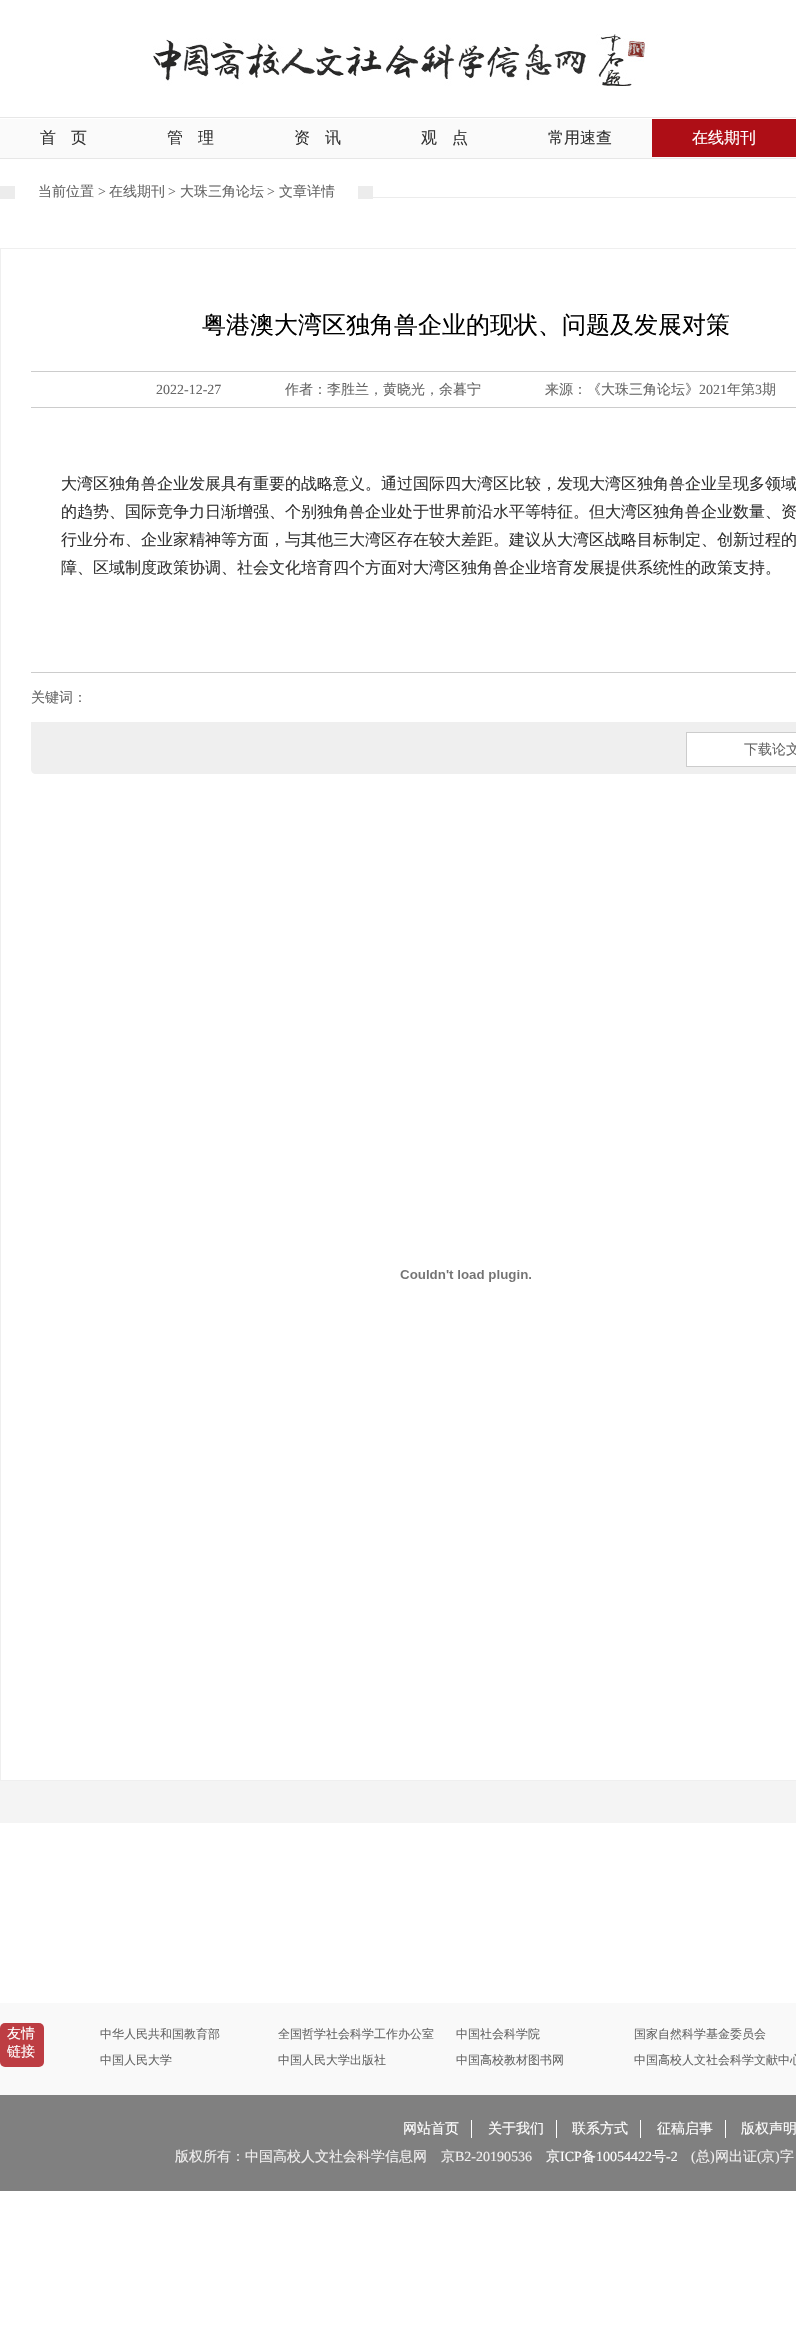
static SkFont makeFont(const char* family, int weight, float size, bool italic = false) {
  SkFontStyle style(weight, SkFontStyle::kNormal_Width,
    italic ? SkFontStyle::kItalic_Slant : SkFontStyle::kUpright_Slant);
  SkFont result(fontMgr->matchFamilyStyle(family, style), size);
  result.setSubpixel(true);
  return result;
}

static void text(SkCanvas* c, const char* s, float x, float y, const SkFont& font, SkColor color) {
  SkPaint ink(SkColor4f::FromColor(color));
  ink.setAntiAlias(true);
  c->drawString(s, x, y, font, ink);
}

static void box(SkCanvas* c, float l, float t, float r, float b, SkColor color) {
  SkPaint ink(SkColor4f::FromColor(color));
  ink.setAntiAlias(true);
  c->drawRect(SkRect::MakeLTRB(l, t, r, b), ink);
}

static void roundBox(SkCanvas* c, float l, float t, float r, float b, float radius, SkColor color) {
  SkPaint ink(SkColor4f::FromColor(color));
  ink.setAntiAlias(true);
  c->drawRoundRect(SkRect::MakeLTRB(l, t, r, b), radius, radius, ink);
}

static void picture(SkCanvas* c, const char* path, float l, float t, float r, float b) {
  auto image = SkImages::DeferredFromEncodedData(SkData::MakeFromFileName(path));
  c->drawImageRect(image, SkRect::MakeLTRB(l, t, r, b), SkSamplingOptions());
}

void draw(SkCanvas* c) {
  SkPaint paint;
  paint.setAntiAlias(true);
  c->clear(0xffffffff);
  box(c, 0, 117, 796, 118, 0xffe7e7e7);
  picture(c, "img_01.png", 153, 34, 648, 86);
  box(c, 0, 119, 796, 158, 0xfffafafa);
  box(c, 0, 158, 796, 159, 0xffe7e7e7);
  SkFont face1 = makeFont("WenQuanYi Zen Hei", 500, 16);
  text(c, "首", 40, 143, face1, 0xff333333);
  text(c, "页", 71, 143, face1, 0xff333333);
  text(c, "管", 167, 143, face1, 0xff333333);
  text(c, "理", 198, 143, face1, 0xff333333);
  text(c, "资", 294, 143, face1, 0xff333333);
  text(c, "讯", 325, 143, face1, 0xff333333);
  text(c, "观", 421, 143, face1, 0xff333333);
  text(c, "点", 452, 143, face1, 0xff333333);
  text(c, "常用速查", 548, 143, face1, 0xff333333);
  box(c, 652, 119, 796, 157, 0xffae0e16);
  text(c, "在线期刊", 692, 143, face1, 0xffffffff);
  box(c, 373, 197, 796, 198, 0xffececec);
  picture(c, "img_02.png", 0, 186, 373, 199);
  SkFont face2 = makeFont("WenQuanYi Zen Hei", 500, 14);
  text(c, "当前位置", 38, 196, face2, 0xff666666);
  text(c, "在线期刊", 109, 196, face2, 0xff666666);
  text(c, "大珠三角论坛", 180, 196, face2, 0xff666666);
  text(c, "文章详情", 279, 196, face2, 0xff666666);
  SkFont face3 = makeFont("Liberation Serif", 400, 14);
  text(c, ">", 98, 196, face3, 0xff666666);
  text(c, ">", 168, 196, face3, 0xff666666);
  text(c, ">", 267, 196, face3, 0xff666666);
  box(c, 0, 1781, 796, 1823, 0xfff4f4f4);
  paint.setStyle(SkPaint::kStroke_Style);
  paint.setStrokeWidth(1);
  paint.setColor(0xffefefef);
  c->drawRect(SkRect::MakeLTRB(0.5f, 248.5f, 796.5f, 1780.5f), paint);
  SkFont face4 = makeFont("WenQuanYi Zen Hei", 500, 24);
  text(c, "粤港澳大湾区独角兽企业的现状、问题及发展对策", 202, 333, face4, 0xff000000);
  box(c, 31, 371, 796, 372, 0xffcccccc);
  box(c, 31, 407, 796, 408, 0xffcccccc);
  text(c, "2022-12-27", 156, 394, face3, 0xff666666);
  text(c, "作者：李胜兰，黄晓光，余暮宁", 285, 394, face2, 0xff666666);
  text(c, "来源：《大珠三角论坛》", 545, 394, face2, 0xff666666);
  text(c, "2021", 699, 394, face3, 0xff666666);
  text(c, "年第", 727, 394, face2, 0xff666666);
  text(c, "3", 755, 394, face3, 0xff666666);
  text(c, "期", 762, 394, face2, 0xff666666);
  text(c, "大湾区独角兽企业发展具有重要的战略意义。通过国际四大湾区比较，发现大湾区独角兽企业呈现多领域", 61, 489, face1, 0xff333333);
  text(c, "的趋势、国际竞争力日渐增强、个别独角兽企业处于世界前沿水平等特征。但大湾区独角兽企业数量、资", 61, 517, face1, 0xff333333);
  text(c, "行业分布、企业家精神等方面，与其他三大湾区存在较大差距。建议从大湾区战略目标制定、创新过程的", 61, 545, face1, 0xff333333);
  text(c, "障、区域制度政策协调、社会文化培育四个方面对大湾区独角兽企业培育发展提供系统性的政策支持。", 61, 573, face1, 0xff333333);
  box(c, 31, 672, 796, 673, 0xffcccccc);
  text(c, "关键词：", 31, 702, face2, 0xff666666);
  paint.setStyle(SkPaint::kFill_Style);
  c->drawPath(SkPathBuilder().moveTo(31, 722).lineTo(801, 722).lineTo(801, 769).cubicTo(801, 772, 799, 774, 796, 774).lineTo(36, 774).cubicTo(33, 774, 31, 772, 31, 769).close().detach(), paint);
  paint.setColor(0xffffffff);
  c->drawRect(SkRect::MakeLTRB(686.5f, 732.5f, 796.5f, 766.5f), paint);
  paint.setStyle(SkPaint::kStroke_Style);
  paint.setColor(0xffcccccc);
  c->drawRect(SkRect::MakeLTRB(686.5f, 732.5f, 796.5f, 766.5f), paint);
  text(c, "下载论文", 744, 754, face2, 0xff666666);
  picture(c, "img_03.png", 400, 1270, 531, 1282);
  box(c, 0, 2003, 796, 2095, 0xfff9f9f9);
  roundBox(c, 0, 2023, 44, 2067, 5, 0xffbd3d43);
  text(c, "友情", 7, 2038, face2, 0xffffffff);
  text(c, "链接", 7, 2056, face2, 0xffffffff);
  SkFont face5 = makeFont("WenQuanYi Zen Hei", 500, 12);
  text(c, "中华人民共和国教育部", 100, 2038, face5, 0xff666666);
  text(c, "全国哲学社会科学工作办公室", 278, 2038, face5, 0xff666666);
  text(c, "中国社会科学院", 456, 2038, face5, 0xff666666);
  text(c, "国家自然科学基金委员会", 634, 2038, face5, 0xff666666);
  text(c, "中国人民大学", 100, 2064, face5, 0xff666666);
  text(c, "中国人民大学出版社", 278, 2064, face5, 0xff666666);
  text(c, "中国高校教材图书网", 456, 2064, face5, 0xff666666);
  text(c, "中国高校人文社会科学文献中心", 634, 2064, face5, 0xff666666);
  box(c, 0, 2095, 796, 2191, 0xff808080);
  box(c, 471, 2120, 472, 2138, 0xffffffff);
  text(c, "网站首页", 403, 2133, face2, 0xffffffff);
  box(c, 556, 2120, 557, 2138, 0xffffffff);
  text(c, "关于我们", 488, 2133, face2, 0xffffffff);
  box(c, 640, 2120, 641, 2138, 0xffffffff);
  text(c, "联系方式", 572, 2133, face2, 0xffffffff);
  box(c, 725, 2120, 726, 2138, 0xffffffff);
  text(c, "征稿启事", 657, 2133, face2, 0xffffffff);
  text(c, "版权声明", 741, 2133, face2, 0xffffffff);
  text(c, "版权所有：中国高校人文社会科学信息网　京", 175, 2161, face2, 0xfff1f0f0);
  text(c, "B2-20190536", 455, 2161, face3, 0xfff1f0f0);
  text(c, "京", 546, 2161, face2, 0xffffffff);
  text(c, "ICP", 560, 2161, face3, 0xffffffff);
  text(c, "备", 582, 2161, face2, 0xffffffff);
  text(c, "10054422", 596, 2161, face3, 0xffffffff);
  text(c, "号", 652, 2161, face2, 0xffffffff);
  text(c, "-2", 666, 2161, face3, 0xffffffff);
  text(c, "(", 691, 2161, face3, 0xfff1f0f0);
  text(c, "总", 696, 2161, face2, 0xfff1f0f0);
  text(c, ")", 710, 2161, face3, 0xfff1f0f0);
  text(c, "网出证", 715, 2161, face2, 0xfff1f0f0);
  text(c, "(", 757, 2161, face3, 0xfff1f0f0);
  text(c, "京", 761, 2161, face2, 0xfff1f0f0);
  text(c, ")", 775, 2161, face3, 0xfff1f0f0);
  text(c, "字", 780, 2161, face2, 0xfff1f0f0);
}
